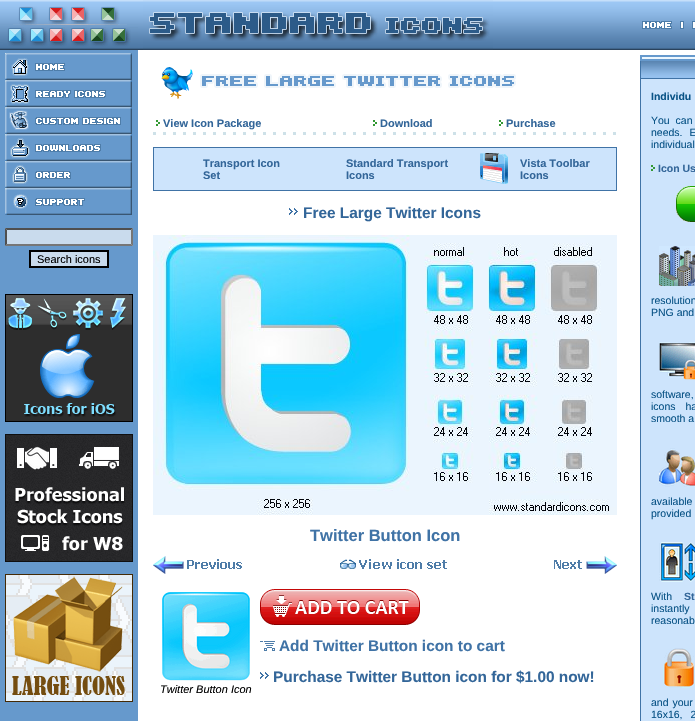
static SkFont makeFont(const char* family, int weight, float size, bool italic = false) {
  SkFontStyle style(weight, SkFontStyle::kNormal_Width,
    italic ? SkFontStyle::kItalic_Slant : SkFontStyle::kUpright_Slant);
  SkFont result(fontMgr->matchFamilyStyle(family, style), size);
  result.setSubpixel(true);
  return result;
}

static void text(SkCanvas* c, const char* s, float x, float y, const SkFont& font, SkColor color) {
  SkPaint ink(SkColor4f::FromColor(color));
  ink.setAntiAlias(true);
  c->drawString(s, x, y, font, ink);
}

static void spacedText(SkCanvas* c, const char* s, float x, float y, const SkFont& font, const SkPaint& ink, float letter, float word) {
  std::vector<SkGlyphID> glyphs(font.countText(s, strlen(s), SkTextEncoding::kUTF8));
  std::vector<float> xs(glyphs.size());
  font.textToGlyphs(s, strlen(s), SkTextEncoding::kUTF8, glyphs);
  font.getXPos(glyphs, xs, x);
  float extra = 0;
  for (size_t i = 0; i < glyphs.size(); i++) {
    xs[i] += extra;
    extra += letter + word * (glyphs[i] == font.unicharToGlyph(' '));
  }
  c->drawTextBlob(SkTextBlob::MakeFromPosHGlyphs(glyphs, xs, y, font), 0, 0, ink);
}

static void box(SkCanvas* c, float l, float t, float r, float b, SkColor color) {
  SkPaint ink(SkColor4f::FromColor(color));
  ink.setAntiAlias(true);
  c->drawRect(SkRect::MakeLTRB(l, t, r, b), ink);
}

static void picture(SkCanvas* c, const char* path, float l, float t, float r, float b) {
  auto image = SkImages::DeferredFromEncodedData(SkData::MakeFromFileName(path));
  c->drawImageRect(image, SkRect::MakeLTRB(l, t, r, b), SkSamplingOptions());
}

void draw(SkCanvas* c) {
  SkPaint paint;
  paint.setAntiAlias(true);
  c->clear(0xffffffff);
  box(c, 641, 79, 695, 721, 0xffcde4fc);
  paint.setStyle(SkPaint::kStroke_Style);
  paint.setStrokeWidth(1);
  paint.setColor(0xff4073a6);
  c->drawRect(SkRect::MakeLTRB(640.5f, 55.5f, 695.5f, 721.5f), paint);
  paint.setStyle(SkPaint::kFill_Style);
  paint.setColor(0xffedf7fe);
  c->drawRect(SkRect::MakeLTRB(641, 56, 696, 60), paint);
  paint.setStyle(SkPaint::kStroke_Style);
  paint.setStrokeWidth(2);
  paint.setColor(0xff6699cc);
  c->drawRect(SkRect::MakeLTRB(641, 56, 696, 60), paint);
  picture(c, "img_01.png", 0, 0, 138, 50);
  picture(c, "img_02.png", 138, 0, 143, 50);
  picture(c, "img_03.png", 143, 0, 493, 50);
  picture(c, "img_04.png", 493, 0, 635, 50);
  picture(c, "img_05.png", 635, 0, 695, 50);
  picture(c, "img_06.png", 642, 21, 695, 29);
  box(c, 0, 50, 138, 721, 0xff6699cc);
  picture(c, "img_07.png", 5, 53, 132, 80);
  picture(c, "img_08.png", 5, 80, 132, 107);
  picture(c, "img_09.png", 5, 107, 132, 134);
  picture(c, "img_10.png", 5, 134, 132, 161);
  picture(c, "img_11.png", 5, 161, 132, 188);
  picture(c, "img_12.png", 5, 188, 132, 215);
  box(c, 5, 228, 133, 246, 0xffc9dbed);
  paint.setStyle(SkPaint::kFill_Style);
  paint.setColor(0xff4f4f4f);
  c->drawPath(SkPathBuilder().moveTo(5, 228).lineTo(133, 228).lineTo(131, 230).lineTo(7, 230).close().detach(), paint);
  paint.setColor(0xff767676);
  c->drawPath(SkPathBuilder().moveTo(133, 228).lineTo(133, 246).lineTo(131, 244).lineTo(131, 230).close().detach(), paint);
  c->drawPath(SkPathBuilder().moveTo(133, 246).lineTo(5, 246).lineTo(7, 244).lineTo(131, 244).close().detach(), paint);
  paint.setColor(0xff4f4f4f);
  c->drawPath(SkPathBuilder().moveTo(5, 246).lineTo(5, 228).lineTo(7, 230).lineTo(7, 244).close().detach(), paint);
  paint.setColor(0xffc9dbed);
  c->drawRect(SkRect::MakeLTRB(30, 251, 108, 267), paint);
  paint.setStyle(SkPaint::kStroke_Style);
  paint.setColor(0xff000000);
  c->drawRect(SkRect::MakeLTRB(30, 251, 108, 267), paint);
  SkFont face1 = makeFont("Liberation Sans", 400, 11);
  text(c, "Search icons", 37, 263, face1, 0xff000000);
  picture(c, "img_13.png", 5, 294, 133, 422);
  picture(c, "img_14.png", 5, 434, 133, 562);
  picture(c, "img_15.png", 5, 574, 133, 702);
  picture(c, "img_16.png", 161, 67, 516, 99);
  picture(c, "img_17.png", 156, 120, 160, 126);
  SkFont face2 = makeFont("Liberation Sans", 700, 11);
  text(c, "View Icon Package", 163, 127, face2, 0xff336699);
  picture(c, "img_17.png", 373, 120, 377, 126);
  text(c, "Download", 380, 127, face2, 0xff336699);
  picture(c, "img_17.png", 499, 120, 503, 126);
  text(c, "Purchase", 506, 127, face2, 0xff336699);
  picture(c, "img_18.png", 153, 132, 616, 135);
  paint.setStrokeWidth(1);
  paint.setColor(0xff4073a6);
  c->drawRect(SkRect::MakeLTRB(153.5f, 147.5f, 616.5f, 190.5f), paint);
  box(c, 154, 148, 616, 190, 0xffcde4fc);
  text(c, "Transport Icon", 203, 167, face2, 0xff336699);
  text(c, "Set", 203, 179, face2, 0xff336699);
  text(c, "Standard Transport", 346, 167, face2, 0xff336699);
  text(c, "Icons", 346, 179, face2, 0xff336699);
  picture(c, "img_19.png", 480, 153, 508, 184);
  text(c, "Vista Toolbar", 520, 167, face2, 0xff336699);
  text(c, "Icons", 520, 179, face2, 0xff336699);
  picture(c, "img_20.png", 289, 208, 298, 215);
  SkFont face3 = makeFont("Liberation Sans", 700, 15.4f);
  text(c, "Free Large Twitter Icons", 303, 218, face3, 0xff336699);
  picture(c, "img_21.png", 153, 235, 617, 515);
  SkFont face4 = makeFont("Liberation Sans", 700, 16.5f);
  text(c, "Twitter Button Icon", 310, 541, face4, 0xff4073a6);
  picture(c, "img_22.png", 153, 556, 242, 574);
  picture(c, "img_23.png", 340, 559, 447, 569);
  picture(c, "img_24.png", 554, 556, 617, 574);
  picture(c, "img_25.png", 260, 589, 420, 625);
  picture(c, "img_26.png", 260, 641, 275, 651);
  text(c, "Add Twitter Button icon to cart", 279, 651, face3, 0xff4073a6);
  picture(c, "img_20.png", 260, 672, 269, 679);
  text(c, "Purchase Twitter Button icon for $1.00 now!", 273, 682, face3, 0xff336699);
  picture(c, "img_27.png", 162, 592, 250, 681);
  SkFont face5 = makeFont("Liberation Sans", 400, 11, true);
  text(c, "Twitter Button Icon", 160, 693, face5, 0xff000000);
  picture(c, "img_28.png", 641, 61, 695, 79);
  SkFont face6 = makeFont("Liberation Sans", 700, 10.5f);
  text(c, "Individu", 651, 100, face6, 0xff095386);
  SkFont face7 = makeFont("Liberation Sans", 400, 10.5f);
  paint.setStyle(SkPaint::kFill_Style);
  paint.setColor(0xff095386);
  spacedText(c, "You can", 651, 124, face7, paint, 0, 3);
  spacedText(c, "needs. E", 651, 136, face7, paint, 0, 4);
  text(c, "individual", 651, 148, face7, 0xff095386);
  picture(c, "img_29.png", 651, 165, 655, 171);
  text(c, "Icon Us", 658, 172, face6, 0xff336699);
  picture(c, "img_30.png", 676, 186, 695, 222);
  picture(c, "img_31.png", 659, 246, 695, 286);
  spacedText(c, "resolution", 651, 304, face7, paint, 0, 1);
  text(c, "PNG and", 651, 316, face7, 0xff095386);
  picture(c, "img_32.png", 659, 342, 695, 380);
  spacedText(c, "software,", 651, 398, face7, paint, 0, 2);
  spacedText(c, "icons ha", 651, 410, face7, paint, 0, 7);
  text(c, "smooth a", 651, 422, face7, 0xff095386);
  picture(c, "img_33.png", 659, 448, 695, 487);
  text(c, "available", 651, 505, face7, 0xff095386);
  text(c, "provided", 651, 517, face7, 0xff095386);
  picture(c, "img_34.png", 659, 542, 695, 582);
  text(c, "With", 651, 600, face7, 0xff095386);
  paint.setColor(0xff336699);
  spacedText(c, "St", 684, 600, face6, paint, 0, 8);
  paint.setColor(0xff095386);
  spacedText(c, "instantly", 651, 612, face7, paint, 0, 1);
  text(c, "reasonab", 651, 624, face7, 0xff095386);
  picture(c, "img_35.png", 663, 648, 695, 688);
  spacedText(c, "and your", 651, 706, face7, paint, 0, 1);
  spacedText(c, "16x16, 2", 651, 718, face7, paint, 0, 5);
}
